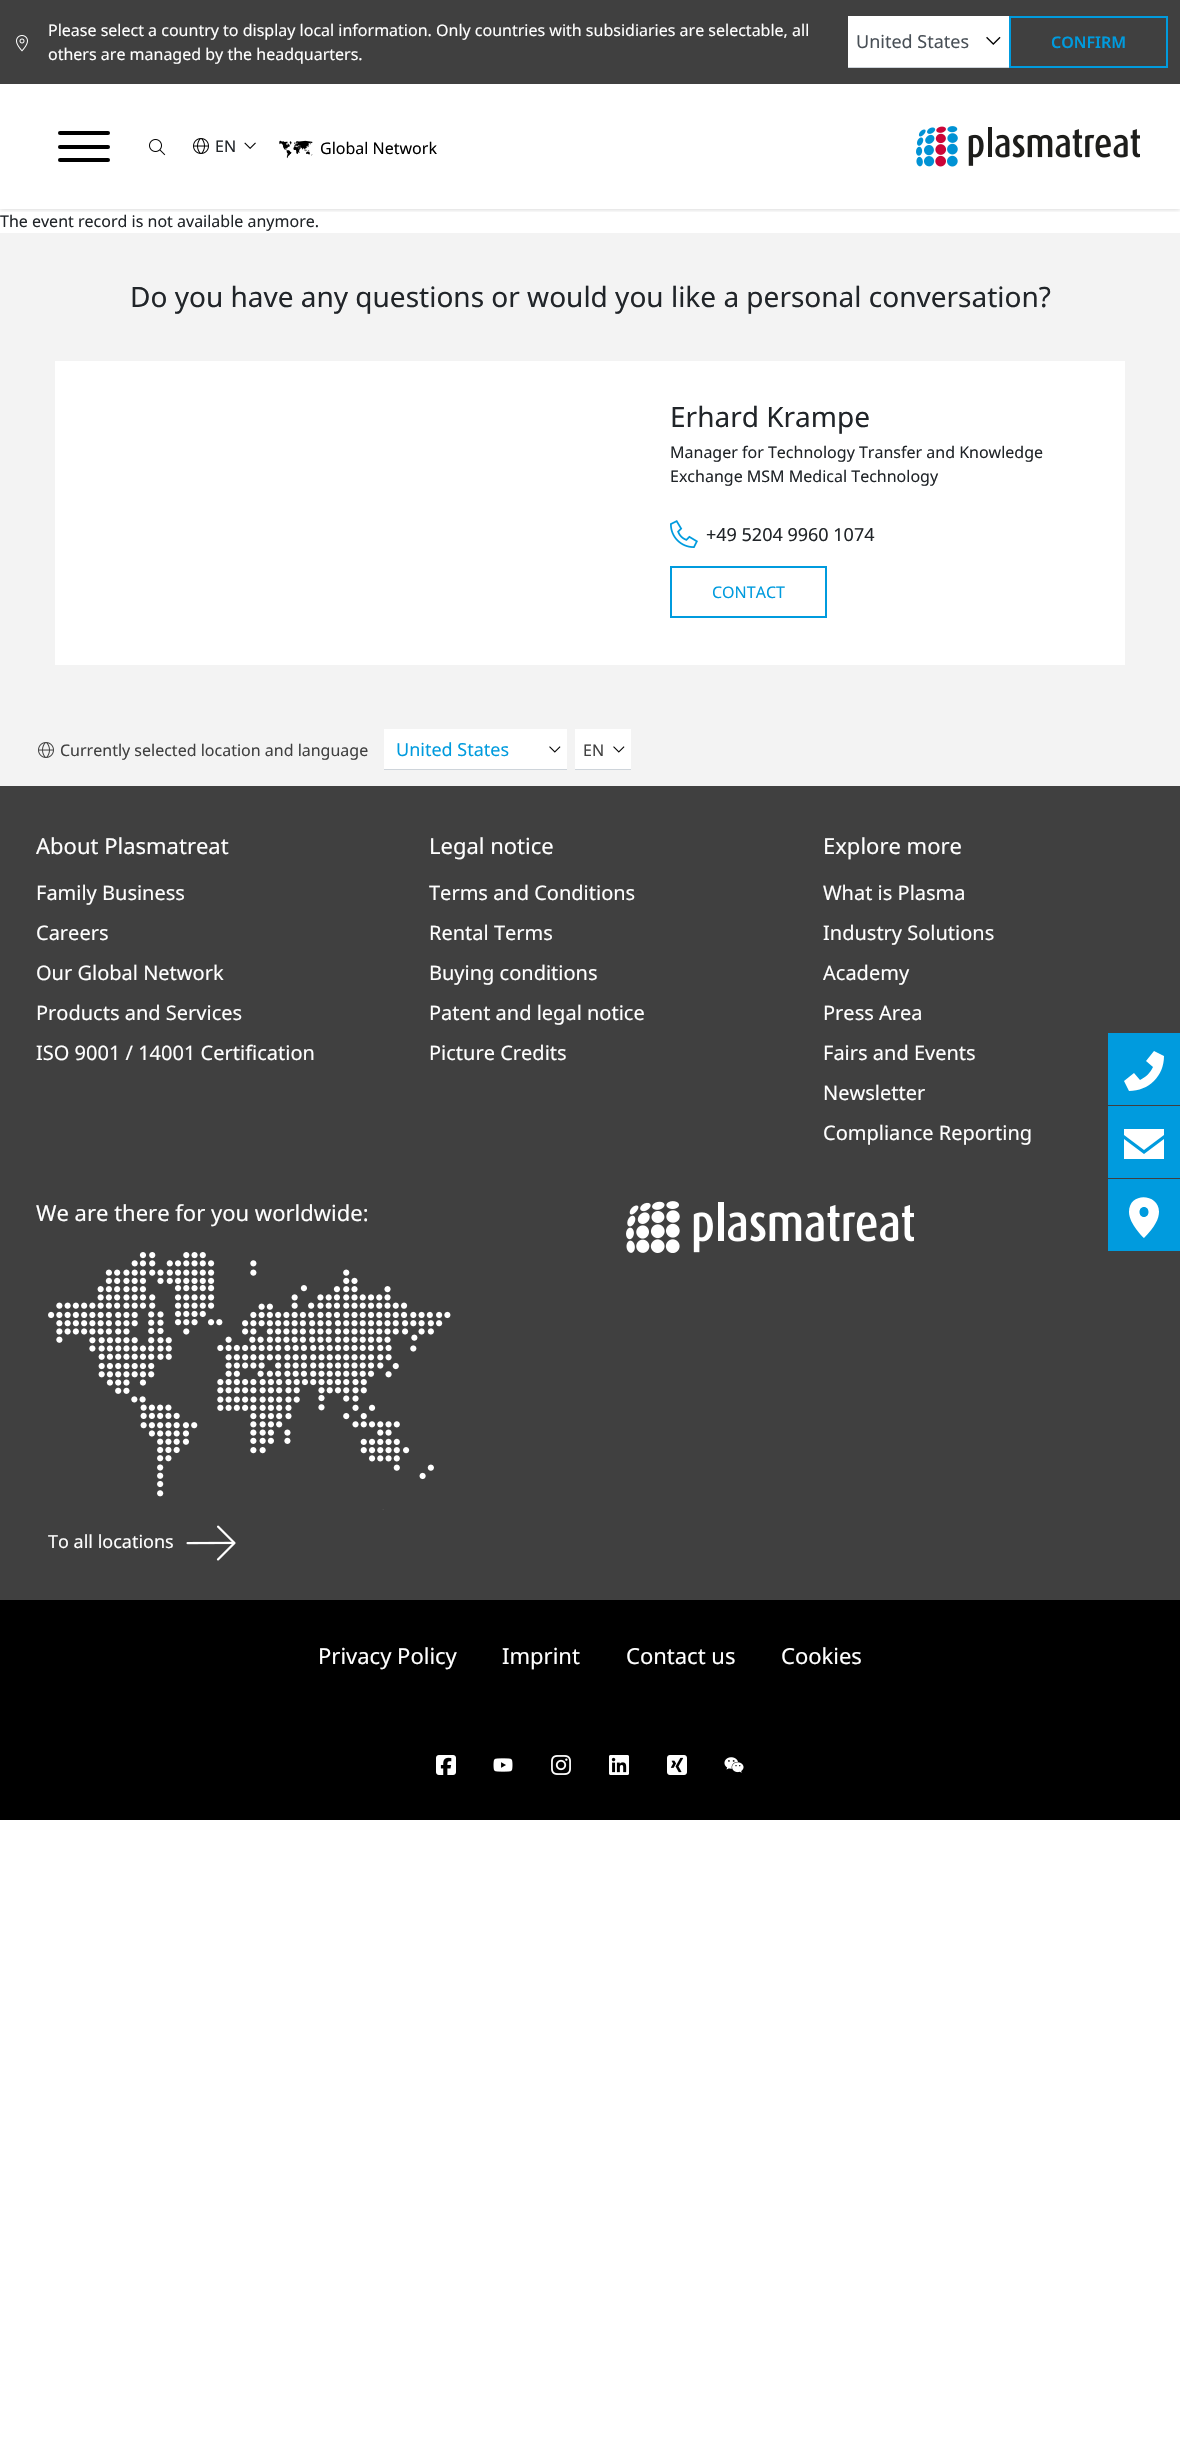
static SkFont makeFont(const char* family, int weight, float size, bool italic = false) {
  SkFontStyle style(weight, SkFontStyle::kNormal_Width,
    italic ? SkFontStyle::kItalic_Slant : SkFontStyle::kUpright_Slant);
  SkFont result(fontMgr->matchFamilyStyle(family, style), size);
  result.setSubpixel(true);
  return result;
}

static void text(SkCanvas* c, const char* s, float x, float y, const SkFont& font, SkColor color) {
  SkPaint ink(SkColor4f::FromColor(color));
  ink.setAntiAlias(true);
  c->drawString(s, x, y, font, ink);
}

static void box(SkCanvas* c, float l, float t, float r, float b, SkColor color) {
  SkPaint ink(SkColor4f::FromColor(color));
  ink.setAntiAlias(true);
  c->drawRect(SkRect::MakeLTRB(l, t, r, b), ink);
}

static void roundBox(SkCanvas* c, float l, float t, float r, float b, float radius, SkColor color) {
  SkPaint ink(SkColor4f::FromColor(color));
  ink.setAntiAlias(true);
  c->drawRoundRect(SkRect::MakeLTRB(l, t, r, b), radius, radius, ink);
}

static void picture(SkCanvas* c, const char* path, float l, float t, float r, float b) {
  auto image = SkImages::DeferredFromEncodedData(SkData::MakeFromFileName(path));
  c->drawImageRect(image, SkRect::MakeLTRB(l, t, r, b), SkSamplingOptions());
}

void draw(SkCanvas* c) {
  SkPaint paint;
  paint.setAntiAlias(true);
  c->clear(0xffffffff);
  c->save();
  c->clipRect(SkRect::MakeLTRB(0, 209, 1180, 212));
  paint.setColor(0x33000000);
  paint.setMaskFilter(SkMaskFilter::MakeBlur(kNormal_SkBlurStyle, 2.5f));
  c->drawRect(SkRect::MakeLTRB(0, 0, 1180, 209), paint);
  paint.setMaskFilter(nullptr);
  c->restore();
  box(c, 0, 0, 1180, 84, 0xff404040);
  picture(c, "img_01.png", 16, 35, 28, 52);
  SkFont face1 = makeFont("Noto Sans", 400, 16);
  text(c, "Please select a country to display local information. Only countries with subsidiaries are selectable, all", 48, 36, face1, 0xffffffff);
  text(c, "others are managed by the headquarters.", 48, 60, face1, 0xffffffff);
  box(c, 848, 16, 1009, 67, 0xffffffff);
  picture(c, "img_02.png", 986, 36, 1001, 45);
  box(c, 848, 67, 1010, 68, 0xffced4da);
  SkFont face2 = makeFont("Noto Sans", 400, 18);
  text(c, "United States", 856, 48, face2, 0xff495057);
  paint.setStyle(SkPaint::kStroke_Style);
  paint.setStrokeWidth(2);
  paint.setColor(0xff009bde);
  c->drawRect(SkRect::MakeLTRB(1010, 17, 1167, 67), paint);
  SkFont face3 = makeFont("Noto Sans", 600, 16);
  text(c, "CONFIRM", 1051, 48, face3, 0xff009bde);
  roundBox(c, 58, 131, 110, 135, 2, 0xff000000);
  roundBox(c, 58, 145, 110, 149, 2, 0xff000000);
  roundBox(c, 58, 158, 110, 162, 2, 0xff000000);
  picture(c, "img_03.png", 149, 139, 166, 156);
  picture(c, "img_04.png", 193, 138, 209, 154);
  text(c, "EN", 215, 152, face1, 0xff212529);
  picture(c, "img_05.png", 244, 142, 256, 149);
  picture(c, "img_06.png", 279, 140, 313, 159);
  text(c, "Global Network", 320, 154, face1, 0xff000000);
  picture(c, "img_07.png", 916, 126, 1140, 167);
  text(c, "The event record is not available anymore.", 0, 227, face1, 0xff212529);
  box(c, 0, 233, 1180, 786, 0xfff3f3f3);
  SkFont face4 = makeFont("Noto Sans", 400, 28);
  text(c, "Do you have any questions or would you like a personal conversation?", 130, 307, face4, 0xff212529);
  box(c, 55, 361, 1125, 665, 0xffffffff);
  text(c, "Erhard Krampe", 670, 427, face4, 0xff212529);
  text(c, "Manager for Technology Transfer and Knowledge", 670, 458, face1, 0xff212529);
  text(c, "Exchange MSM Medical Technology", 670, 482, face1, 0xff212529);
  picture(c, "img_08.png", 670, 520, 698, 548);
  text(c, "+49 5204 9960 1074", 706, 541, face2, 0xff212529);
  c->drawRect(SkRect::MakeLTRB(671, 567, 826, 617), paint);
  text(c, "CONTACT", 712, 598, face1, 0xff009bde);
  picture(c, "img_09.png", 38, 742, 54, 758);
  text(c, "Currently selected location and language", 60, 756, face1, 0xff404040);
  box(c, 384, 729, 567, 769, 0xffffffff);
  picture(c, "img_10.png", 549, 746, 561, 753);
  box(c, 384, 769, 567, 770, 0xffced4da);
  text(c, "United States", 396, 756, face2, 0xff009bde);
  box(c, 575, 729, 631, 769, 0xffffffff);
  picture(c, "img_10.png", 613, 746, 625, 753);
  box(c, 575, 769, 631, 770, 0xffced4da);
  text(c, "EN", 583, 756, face1, 0xff404040);
  box(c, 0, 786, 1180, 1600, 0xff404040);
  SkFont face5 = makeFont("Noto Sans", 400, 22);
  text(c, "About Plasmatreat", 36, 854, face5, 0xffffffff);
  SkFont face6 = makeFont("Noto Sans", 400, 20);
  text(c, "Family Business", 36, 900, face6, 0xffffffff);
  text(c, "Careers", 36, 940, face6, 0xffffffff);
  text(c, "Our Global Network", 36, 980, face6, 0xffffffff);
  text(c, "Products and Services", 36, 1020, face6, 0xffffffff);
  text(c, "ISO 9001 / 14001 Certification", 36, 1060, face6, 0xffffffff);
  text(c, "Legal notice", 429, 854, face5, 0xffffffff);
  text(c, "Terms and Conditions", 429, 900, face6, 0xffffffff);
  text(c, "Rental Terms", 429, 940, face6, 0xffffffff);
  text(c, "Buying conditions", 429, 980, face6, 0xffffffff);
  text(c, "Patent and legal notice", 429, 1020, face6, 0xffffffff);
  text(c, "Picture Credits", 429, 1060, face6, 0xffffffff);
  text(c, "Explore more", 823, 854, face5, 0xffffffff);
  text(c, "What is Plasma", 823, 900, face6, 0xffffffff);
  text(c, "Industry Solutions", 823, 940, face6, 0xffffffff);
  text(c, "Academy", 823, 980, face6, 0xffffffff);
  text(c, "Press Area", 823, 1020, face6, 0xffffffff);
  text(c, "Fairs and Events", 823, 1060, face6, 0xffffffff);
  text(c, "Newsletter", 823, 1100, face6, 0xffffffff);
  text(c, "Compliance Reporting", 823, 1140, face6, 0xffffffff);
  text(c, "We are there for you worldwide:", 36, 1221, face5, 0xffffffff);
  picture(c, "img_11.png", 48, 1252, 451, 1510);
  text(c, "To all locations", 48, 1548, face2, 0xffffffff);
  picture(c, "img_12.png", 186, 1525, 236, 1561);
  picture(c, "img_13.png", 626, 1201, 914, 1253);
  box(c, 1108, 1033, 1180, 1105, 0xff009bde);
  paint.setStyle(SkPaint::kFill_Style);
  paint.setColor(0xffffffff);
  c->drawPath(SkPathBuilder().moveTo(1164, 1056).lineTo(1154, 1051).lineTo(1146, 1061).lineTo(1153, 1067).cubicTo(1150, 1073, 1146, 1077, 1140, 1080).lineTo(1134, 1073).lineTo(1124, 1081).lineTo(1129, 1091).cubicTo(1149, 1091, 1164, 1076, 1164, 1056).close().detach(), paint);
  box(c, 1108, 1106, 1180, 1178, 0xff009bde);
  c->drawPath(SkPathBuilder().moveTo(1124, 1129).lineTo(1164, 1129).lineTo(1164, 1135).lineTo(1144, 1150).lineTo(1124, 1135).close().moveTo(1124, 1139).lineTo(1144, 1154).lineTo(1164, 1139).lineTo(1164, 1159).lineTo(1124, 1159).close().detach(), paint);
  box(c, 1108, 1179, 1180, 1251, 0xff009bde);
  c->drawPath(SkPathBuilder().moveTo(1129, 1212).cubicTo(1129, 1184, 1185, 1198, 1144, 1238).cubicTo(1144, 1238, 1129, 1224, 1129, 1212).close().moveTo(1144, 1217).cubicTo(1150, 1217, 1150, 1207, 1144, 1207).cubicTo(1138, 1207, 1138, 1217, 1144, 1217).close().detach(), paint);
  box(c, 0, 1600, 1180, 1820, 0xff000000);
  text(c, "Privacy Policy", 318, 1664, face5, 0xffffffff);
  text(c, "Imprint", 502, 1664, face5, 0xffffffff);
  text(c, "Contact us", 626, 1664, face5, 0xffffffff);
  text(c, "Cookies", 781, 1664, face5, 0xffffffff);
  picture(c, "img_14.png", 436, 1755, 456, 1775);
  picture(c, "img_15.png", 493, 1758, 513, 1772);
  picture(c, "img_16.png", 551, 1755, 571, 1775);
  picture(c, "img_17.png", 609, 1755, 629, 1775);
  picture(c, "img_18.png", 667, 1755, 687, 1775);
  picture(c, "img_19.png", 724, 1757, 744, 1773);
}
